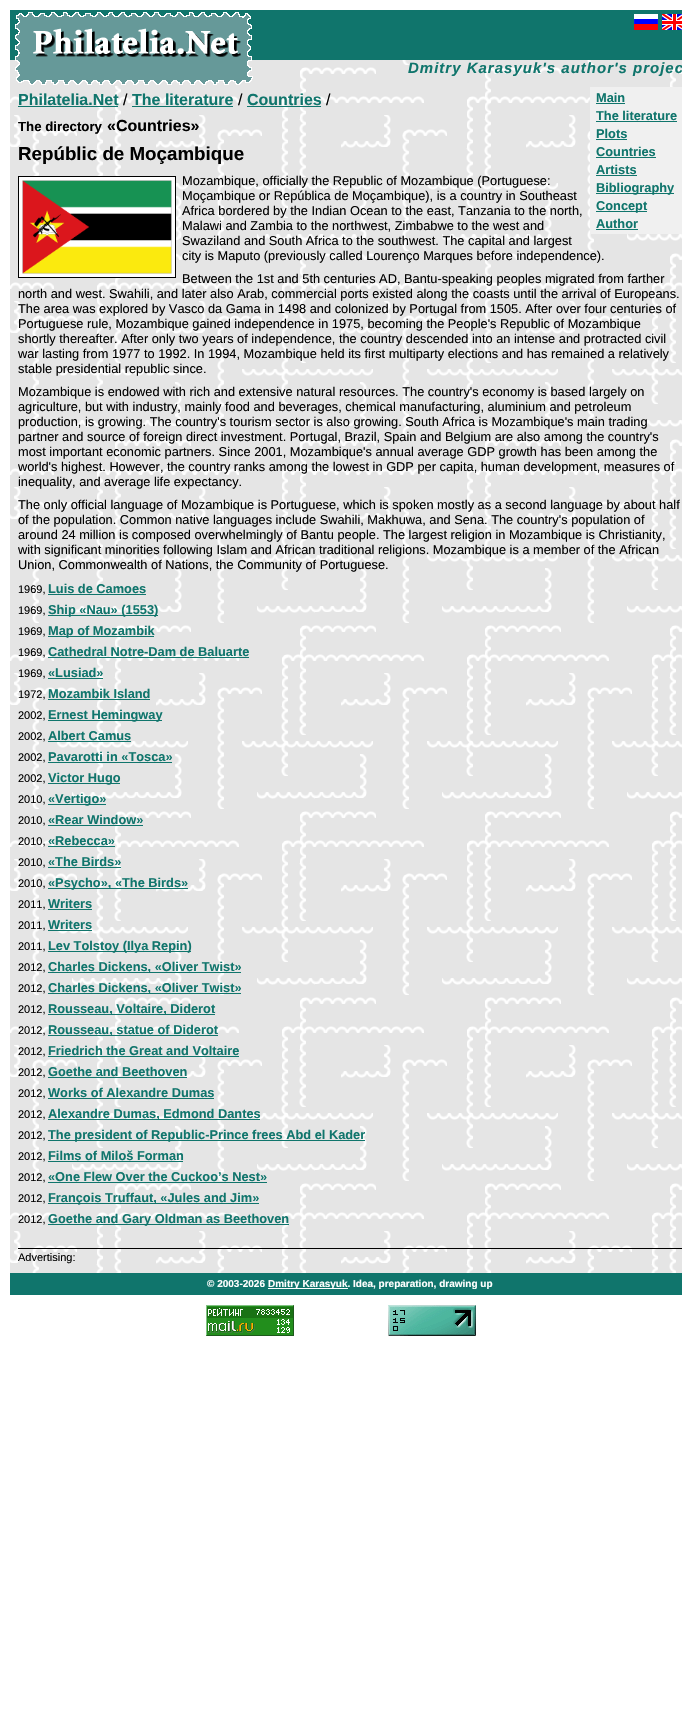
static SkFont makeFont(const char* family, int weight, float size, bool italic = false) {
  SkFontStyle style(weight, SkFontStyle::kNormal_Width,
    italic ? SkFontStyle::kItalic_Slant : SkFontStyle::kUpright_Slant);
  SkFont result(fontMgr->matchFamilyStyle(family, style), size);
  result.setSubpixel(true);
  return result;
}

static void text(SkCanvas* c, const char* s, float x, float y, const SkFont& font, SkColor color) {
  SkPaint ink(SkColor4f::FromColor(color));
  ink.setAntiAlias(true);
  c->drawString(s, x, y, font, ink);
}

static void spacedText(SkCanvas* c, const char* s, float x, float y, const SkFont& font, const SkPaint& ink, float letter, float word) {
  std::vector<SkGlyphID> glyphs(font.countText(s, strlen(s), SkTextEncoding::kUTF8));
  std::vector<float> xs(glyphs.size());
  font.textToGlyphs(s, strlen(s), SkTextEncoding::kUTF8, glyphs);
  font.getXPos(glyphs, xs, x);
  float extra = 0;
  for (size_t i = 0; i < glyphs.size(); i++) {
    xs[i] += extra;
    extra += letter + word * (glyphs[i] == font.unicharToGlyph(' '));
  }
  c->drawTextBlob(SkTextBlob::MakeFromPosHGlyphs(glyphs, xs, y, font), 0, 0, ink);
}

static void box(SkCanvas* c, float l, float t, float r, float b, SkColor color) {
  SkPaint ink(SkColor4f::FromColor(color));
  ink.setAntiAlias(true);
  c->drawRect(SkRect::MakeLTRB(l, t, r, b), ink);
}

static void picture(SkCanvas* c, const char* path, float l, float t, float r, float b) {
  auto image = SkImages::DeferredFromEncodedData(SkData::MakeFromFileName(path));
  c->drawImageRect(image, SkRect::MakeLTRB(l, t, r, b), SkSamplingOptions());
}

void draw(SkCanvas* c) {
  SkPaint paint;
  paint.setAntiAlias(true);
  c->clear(0xffffffff);
  picture(c, "img_01.png", 10, 60, 682, 1273);
  box(c, 10, 10, 682, 60, 0xff10756c);
  box(c, 32, 60, 224, 86, 0xffe5e5e5);
  picture(c, "img_02.png", 15, 12, 253, 85);
  picture(c, "img_03.png", 634, 14, 658, 30);
  picture(c, "img_04.png", 662, 14, 682, 30);
  SkFont face1 = makeFont("Liberation Sans", 700, 15, true);
  paint.setColor(0xff10756c);
  spacedText(c, "Dmitry Karasyuk's author's projec", 408, 73, face1, paint, 1, 0);
  SkFont face2 = makeFont("Liberation Sans", 700, 16);
  text(c, "Philatelia.Net", 18, 105, face2, 0xff10756c);
  box(c, 18, 106, 118, 107, 0xff10756c);
  SkFont face3 = makeFont("Liberation Sans", 400, 16);
  text(c, "/", 123, 105, face3, 0xff000000);
  text(c, "The literature", 132, 105, face2, 0xff10756c);
  box(c, 132, 106, 233, 107, 0xff10756c);
  text(c, "/", 238, 105, face3, 0xff000000);
  text(c, "Countries", 247, 105, face2, 0xff10756c);
  box(c, 247, 106, 321, 107, 0xff10756c);
  text(c, "/", 326, 105, face3, 0xff000000);
  box(c, 590, 87, 682, 234, 0xfff0f0f0);
  SkFont face4 = makeFont("Liberation Sans", 700, 12.8f);
  text(c, "Main", 596, 102, face4, 0xff10756c);
  box(c, 596, 103, 625, 104, 0xff10756c);
  text(c, "The literature", 596, 120, face4, 0xff10756c);
  box(c, 596, 121, 677, 122, 0xff10756c);
  text(c, "Plots", 596, 138, face4, 0xff10756c);
  box(c, 596, 139, 627, 140, 0xff10756c);
  text(c, "Countries", 596, 156, face4, 0xff10756c);
  box(c, 596, 157, 656, 158, 0xff10756c);
  text(c, "Artists", 596, 174, face4, 0xff10756c);
  box(c, 596, 175, 637, 176, 0xff10756c);
  box(c, 596, 193, 674, 194, 0xff10756c);
  text(c, "Bibliography", 596, 192, face4, 0xff10756c);
  box(c, 596, 211, 647, 212, 0xff10756c);
  text(c, "Concept", 596, 210, face4, 0xff10756c);
  text(c, "Author", 596, 228, face4, 0xff10756c);
  box(c, 596, 229, 638, 230, 0xff10756c);
  SkFont face5 = makeFont("Liberation Sans", 700, 13.25f);
  text(c, "The directory", 18, 131, face5, 0xff000000);
  text(c, "«Countries»", 107, 131, face2, 0xff000000);
  SkFont face6 = makeFont("Liberation Sans", 700, 18.75f);
  text(c, "Repúblic de Moçambique", 18, 160, face6, 0xff000000);
  paint.setColor(0xffffffff);
  c->drawRect(SkRect::MakeLTRB(18.5f, 176.5f, 175.5f, 277.5f), paint);
  paint.setStyle(SkPaint::kStroke_Style);
  paint.setStrokeWidth(1);
  paint.setColor(0xff000000);
  c->drawRect(SkRect::MakeLTRB(18.5f, 176.5f, 175.5f, 277.5f), paint);
  picture(c, "img_05.png", 22, 180, 172, 274);
  SkFont face7 = makeFont("Liberation Sans", 400, 12.8f);
  text(c, "Mozambique, officially the Republic of Mozambique (Portuguese:", 182, 185, face7, 0xff000000);
  text(c, "Moçambique or República de Moçambique), is a country in Southeast", 182, 200, face7, 0xff000000);
  text(c, "Africa bordered by the Indian Ocean to the east, Tanzania to the north,", 182, 215, face7, 0xff000000);
  text(c, "Malawi and Zambia to the northwest, Zimbabwe to the west and", 182, 230, face7, 0xff000000);
  text(c, "Swaziland and South Africa to the southwest. The capital and largest", 182, 245, face7, 0xff000000);
  text(c, "city is Maputo (previously called Lourenço Marques before independence).", 182, 260, face7, 0xff000000);
  text(c, "Between the 1st and 5th centuries AD, Bantu-speaking peoples migrated from farther", 182, 283, face7, 0xff000000);
  text(c, "north and west. Swahili, and later also Arab, commercial ports existed along the coasts until the arrival of Europeans.", 18, 298, face7, 0xff000000);
  text(c, "The area was explored by Vasco da Gama in 1498 and colonized by Portugal from 1505. After over four centuries of", 18, 313, face7, 0xff000000);
  text(c, "Portuguese rule, Mozambique gained independence in 1975, becoming the People's Republic of Mozambique", 18, 328, face7, 0xff000000);
  text(c, "shortly thereafter. After only two years of independence, the country descended into an intense and protracted civil", 18, 343, face7, 0xff000000);
  text(c, "war lasting from 1977 to 1992. In 1994, Mozambique held its first multiparty elections and has remained a relatively", 18, 358, face7, 0xff000000);
  text(c, "stable presidential republic since.", 18, 373, face7, 0xff000000);
  text(c, "Mozambique is endowed with rich and extensive natural resources. The country's economy is based largely on", 18, 396, face7, 0xff000000);
  text(c, "agriculture, but with industry, mainly food and beverages, chemical manufacturing, aluminium and petroleum", 18, 411, face7, 0xff000000);
  text(c, "production, is growing. The country's tourism sector is also growing. South Africa is Mozambique's main trading", 18, 426, face7, 0xff000000);
  text(c, "partner and source of foreign direct investment. Portugal, Brazil, Spain and Belgium are also among the country's", 18, 441, face7, 0xff000000);
  text(c, "most important economic partners. Since 2001, Mozambique's annual average GDP growth has been among the", 18, 456, face7, 0xff000000);
  text(c, "world's highest. However, the country ranks among the lowest in GDP per capita, human development, measures of", 18, 471, face7, 0xff000000);
  text(c, "inequality, and average life expectancy.", 18, 486, face7, 0xff000000);
  text(c, "The only official language of Mozambique is Portuguese, which is spoken mostly as a second language by about half", 18, 509, face7, 0xff000000);
  text(c, "of the population. Common native languages include Swahili, Makhuwa, and Sena. The country's population of", 18, 524, face7, 0xff000000);
  text(c, "around 24 million is composed overwhelmingly of Bantu people. The largest religion in Mozambique is Christianity,", 18, 539, face7, 0xff000000);
  text(c, "with significant minorities following Islam and African traditional religions. Mozambique is a member of the African", 18, 554, face7, 0xff000000);
  text(c, "Union, Commonwealth of Nations, the Community of Portuguese.", 18, 569, face7, 0xff000000);
  SkFont face8 = makeFont("Liberation Sans", 400, 11);
  text(c, "1969,", 18, 593, face8, 0xff000000);
  text(c, "Luis de Camoes", 48, 593, face4, 0xff10756c);
  box(c, 48, 594, 146, 595, 0xff10756c);
  text(c, "1969,", 18, 614, face8, 0xff000000);
  box(c, 48, 615, 158, 616, 0xff10756c);
  text(c, "Ship «Nau» (1553)", 48, 614, face4, 0xff10756c);
  text(c, "1969,", 18, 635, face8, 0xff000000);
  box(c, 48, 636, 154, 637, 0xff10756c);
  text(c, "Map of Mozambik", 48, 635, face4, 0xff10756c);
  text(c, "1969,", 18, 656, face8, 0xff000000);
  text(c, "Cathedral Notre-Dam de Baluarte", 48, 656, face4, 0xff10756c);
  box(c, 48, 657, 249, 658, 0xff10756c);
  text(c, "1969,", 18, 677, face8, 0xff000000);
  text(c, "«Lusiad»", 48, 677, face4, 0xff10756c);
  box(c, 48, 678, 103, 679, 0xff10756c);
  text(c, "1972,", 18, 698, face8, 0xff000000);
  text(c, "Mozambik Island", 48, 698, face4, 0xff10756c);
  box(c, 48, 699, 150, 700, 0xff10756c);
  text(c, "2002,", 18, 719, face8, 0xff000000);
  box(c, 48, 720, 162, 721, 0xff10756c);
  text(c, "Ernest Hemingway", 48, 719, face4, 0xff10756c);
  text(c, "2002,", 18, 740, face8, 0xff000000);
  text(c, "Albert Camus", 48, 740, face4, 0xff10756c);
  box(c, 48, 741, 131, 742, 0xff10756c);
  text(c, "2002,", 18, 761, face8, 0xff000000);
  text(c, "Pavarotti in «Tosca»", 48, 761, face4, 0xff10756c);
  box(c, 48, 762, 172, 763, 0xff10756c);
  text(c, "2002,", 18, 782, face8, 0xff000000);
  box(c, 48, 783, 120, 784, 0xff10756c);
  text(c, "Victor Hugo", 48, 782, face4, 0xff10756c);
  text(c, "2010,", 18, 803, face8, 0xff000000);
  box(c, 48, 804, 106, 805, 0xff10756c);
  text(c, "«Vertigo»", 48, 803, face4, 0xff10756c);
  text(c, "2010,", 18, 824, face8, 0xff000000);
  text(c, "«Rear Window»", 48, 824, face4, 0xff10756c);
  box(c, 48, 825, 143, 826, 0xff10756c);
  text(c, "2010,", 18, 845, face8, 0xff000000);
  text(c, "«Rebecca»", 48, 845, face4, 0xff10756c);
  box(c, 48, 846, 115, 847, 0xff10756c);
  text(c, "2010,", 18, 866, face8, 0xff000000);
  text(c, "«The Birds»", 48, 866, face4, 0xff10756c);
  box(c, 48, 867, 121, 868, 0xff10756c);
  text(c, "2010,", 18, 887, face8, 0xff000000);
  box(c, 48, 888, 188, 889, 0xff10756c);
  text(c, "«Psycho», «The Birds»", 48, 887, face4, 0xff10756c);
  text(c, "2011,", 18, 908, face8, 0xff000000);
  text(c, "Writers", 48, 908, face4, 0xff10756c);
  box(c, 48, 909, 92, 910, 0xff10756c);
  text(c, "2011,", 18, 929, face8, 0xff000000);
  text(c, "Writers", 48, 929, face4, 0xff10756c);
  box(c, 48, 930, 92, 931, 0xff10756c);
  text(c, "2011,", 18, 950, face8, 0xff000000);
  box(c, 48, 951, 191, 952, 0xff10756c);
  text(c, "Lev Tolstoy (Ilya Repin)", 48, 950, face4, 0xff10756c);
  text(c, "2012,", 18, 971, face8, 0xff000000);
  box(c, 48, 972, 241, 973, 0xff10756c);
  text(c, "Charles Dickens, «Oliver Twist»", 48, 971, face4, 0xff10756c);
  text(c, "2012,", 18, 992, face8, 0xff000000);
  box(c, 48, 993, 241, 994, 0xff10756c);
  text(c, "Charles Dickens, «Oliver Twist»", 48, 992, face4, 0xff10756c);
  text(c, "2012,", 18, 1013, face8, 0xff000000);
  box(c, 48, 1014, 215, 1015, 0xff10756c);
  text(c, "Rousseau, Voltaire, Diderot", 48, 1013, face4, 0xff10756c);
  text(c, "2012,", 18, 1034, face8, 0xff000000);
  box(c, 48, 1035, 218, 1036, 0xff10756c);
  text(c, "Rousseau, statue of Diderot", 48, 1034, face4, 0xff10756c);
  text(c, "2012,", 18, 1055, face8, 0xff000000);
  text(c, "Friedrich the Great and Voltaire", 48, 1055, face4, 0xff10756c);
  box(c, 48, 1056, 239, 1057, 0xff10756c);
  text(c, "2012,", 18, 1076, face8, 0xff000000);
  text(c, "Goethe and Beethoven", 48, 1076, face4, 0xff10756c);
  box(c, 48, 1077, 187, 1078, 0xff10756c);
  text(c, "2012,", 18, 1097, face8, 0xff000000);
  text(c, "Works of Alexandre Dumas", 48, 1097, face4, 0xff10756c);
  box(c, 48, 1098, 214, 1099, 0xff10756c);
  text(c, "2012,", 18, 1118, face8, 0xff000000);
  box(c, 48, 1119, 260, 1120, 0xff10756c);
  text(c, "Alexandre Dumas, Edmond Dantes", 48, 1118, face4, 0xff10756c);
  text(c, "2012,", 18, 1139, face8, 0xff000000);
  box(c, 48, 1140, 365, 1141, 0xff10756c);
  text(c, "The president of Republic-Prince frees Abd el Kader", 48, 1139, face4, 0xff10756c);
  text(c, "2012,", 18, 1160, face8, 0xff000000);
  text(c, "Films of Miloš Forman", 48, 1160, face4, 0xff10756c);
  box(c, 48, 1161, 183, 1162, 0xff10756c);
  text(c, "2012,", 18, 1181, face8, 0xff000000);
  text(c, "«One Flew Over the Cuckoo’s Nest»", 48, 1181, face4, 0xff10756c);
  box(c, 48, 1182, 267, 1183, 0xff10756c);
  text(c, "2012,", 18, 1202, face8, 0xff000000);
  box(c, 48, 1203, 259, 1204, 0xff10756c);
  text(c, "François Truffaut, «Jules and Jim»", 48, 1202, face4, 0xff10756c);
  text(c, "2012,", 18, 1223, face8, 0xff000000);
  box(c, 48, 1224, 289, 1225, 0xff10756c);
  text(c, "Goethe and Gary Oldman as Beethoven", 48, 1223, face4, 0xff10756c);
  box(c, 18, 1248, 682, 1249, 0xff000000);
  text(c, "Advertising:", 18, 1261, face8, 0xff000000);
  box(c, 10, 1273, 682, 1295, 0xff10756c);
  SkFont face9 = makeFont("Liberation Sans", 700, 10);
  text(c, "© 2003-2026", 207, 1287, face9, 0xffffffff);
  box(c, 268, 1288, 348, 1289, 0xffffffff);
  text(c, "Dmitry Karasyuk. Idea, preparation, drawing up", 268, 1287, face9, 0xffffffff);
  picture(c, "img_06.png", 206, 1305, 294, 1336);
  picture(c, "img_07.png", 388, 1305, 476, 1336);
}
